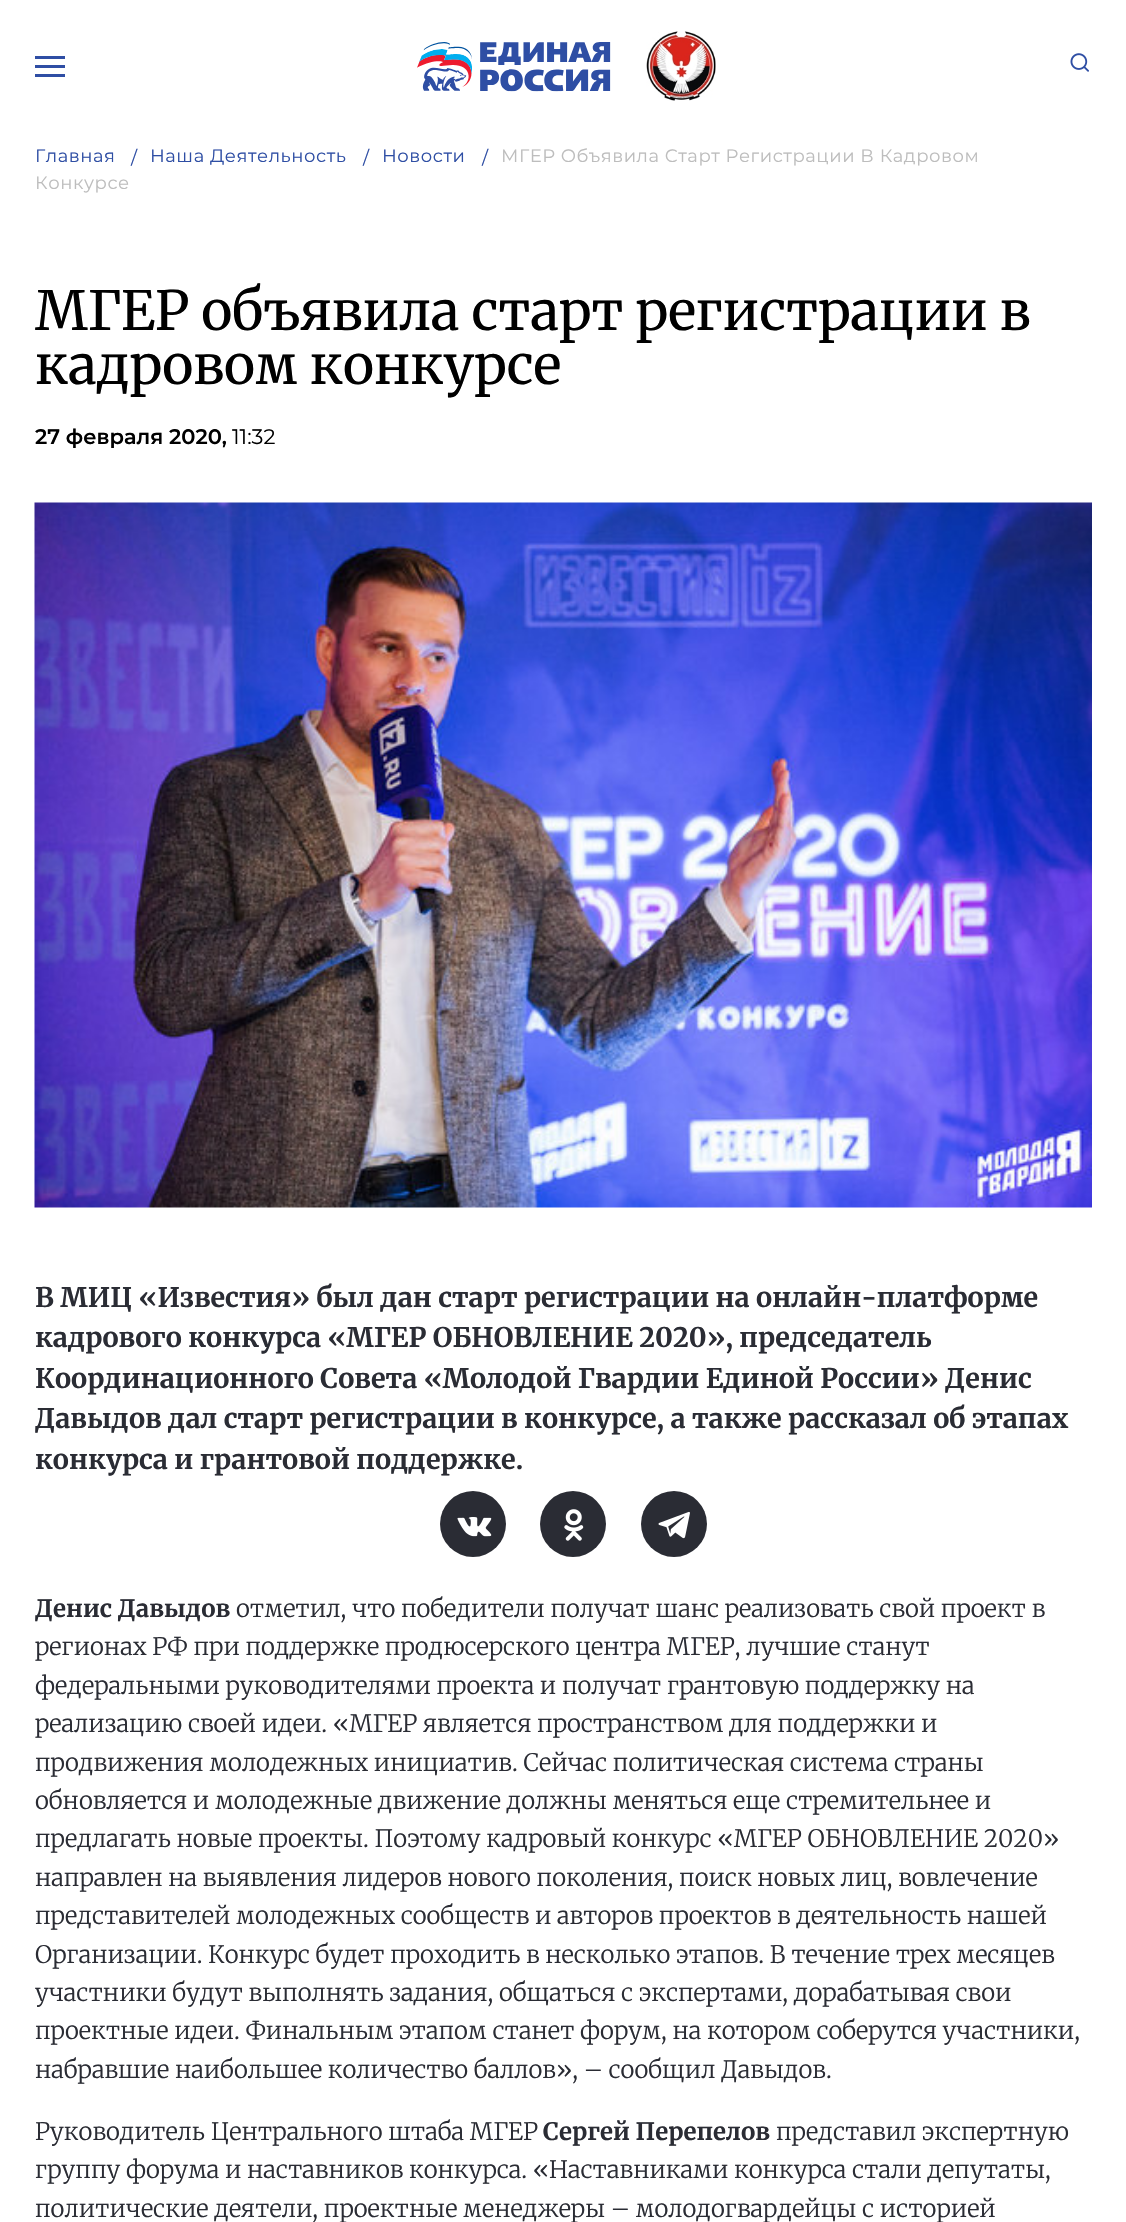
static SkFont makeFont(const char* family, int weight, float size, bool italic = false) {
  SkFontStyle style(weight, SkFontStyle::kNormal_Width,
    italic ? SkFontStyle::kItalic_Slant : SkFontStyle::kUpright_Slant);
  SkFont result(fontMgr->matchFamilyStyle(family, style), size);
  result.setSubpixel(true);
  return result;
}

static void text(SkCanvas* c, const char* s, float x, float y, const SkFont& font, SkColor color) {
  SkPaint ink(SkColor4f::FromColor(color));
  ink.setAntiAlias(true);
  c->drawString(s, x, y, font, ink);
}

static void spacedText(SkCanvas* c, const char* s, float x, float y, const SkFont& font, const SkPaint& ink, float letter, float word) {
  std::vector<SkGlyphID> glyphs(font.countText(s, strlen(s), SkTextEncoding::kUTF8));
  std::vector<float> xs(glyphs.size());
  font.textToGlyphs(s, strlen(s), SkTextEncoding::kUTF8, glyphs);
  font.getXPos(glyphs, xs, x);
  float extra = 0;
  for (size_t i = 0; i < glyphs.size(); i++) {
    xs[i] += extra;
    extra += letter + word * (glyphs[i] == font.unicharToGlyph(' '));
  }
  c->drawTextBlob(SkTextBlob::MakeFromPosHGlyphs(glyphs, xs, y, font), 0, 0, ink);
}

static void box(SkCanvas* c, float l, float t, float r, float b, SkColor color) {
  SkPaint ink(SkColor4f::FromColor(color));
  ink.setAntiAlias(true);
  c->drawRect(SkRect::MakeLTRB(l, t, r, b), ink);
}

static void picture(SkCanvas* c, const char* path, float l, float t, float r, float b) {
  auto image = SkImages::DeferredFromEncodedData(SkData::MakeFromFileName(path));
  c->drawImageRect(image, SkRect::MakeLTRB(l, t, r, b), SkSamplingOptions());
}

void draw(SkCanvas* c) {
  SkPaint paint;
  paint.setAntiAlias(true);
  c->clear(0xffffffff);
  box(c, 35, 56, 65, 59, 0xff2e4ea4);
  box(c, 35, 65, 65, 68, 0xff2e4ea4);
  box(c, 35, 74, 65, 77, 0xff2e4ea4);
  picture(c, "img_01.png", 417, 42, 611, 92);
  picture(c, "img_02.png", 646, 31, 716, 101);
  picture(c, "img_03.png", 1070, 53, 1089, 72);
  SkFont face1 = makeFont("Montserrat", 400, 18);
  paint.setColor(0xff2e4ea4);
  spacedText(c, "Главная", 35, 162, face1, paint, 0.55f, 0);
  spacedText(c, "/", 131, 164, face1, paint, 0.55f, 0);
  spacedText(c, "Наша Деятельность", 150, 162, face1, paint, 0.55f, 0);
  spacedText(c, "/", 363, 164, face1, paint, 0.55f, 0);
  spacedText(c, "Новости", 382, 162, face1, paint, 0.55f, 0);
  spacedText(c, "/", 482, 164, face1, paint, 0.55f, 0);
  paint.setColor(0xffbdbdbd);
  spacedText(c, "МГЕР Объявила Старт Регистрации В Кадровом", 501, 162, face1, paint, 0.55f, 0);
  spacedText(c, "Конкурсе", 35, 189, face1, paint, 0.55f, 0);
  SkFont face2 = makeFont("Merriweather", 400, 54);
  text(c, "МГЕР объявила старт регистрации в", 35, 330, face2, 0xff000000);
  text(c, "кадровом конкурсе", 35, 384, face2, 0xff000000);
  SkFont face3 = makeFont("Montserrat", 600, 21);
  text(c, "27 февраля 2020,", 35, 444, face3, 0xff000000);
  SkFont face4 = makeFont("Montserrat", 400, 21);
  text(c, "11:32", 232, 444, face4, 0xff000000);
  picture(c, "img_04.png", 34, 502, 1092, 1208);
  SkFont face5 = makeFont("Merriweather", 700, 27);
  text(c, "В МИЦ «Известия» был дан старт регистрации на онлайн-платформе", 35, 1307, face5, 0xff2a2c34);
  text(c, "кадрового конкурса «МГЕР ОБНОВЛЕНИЕ 2020», председатель", 35, 1347, face5, 0xff2a2c34);
  text(c, "Координационного Совета «Молодой Гвардии Единой России» Денис", 35, 1388, face5, 0xff2a2c34);
  text(c, "Давыдов дал старт регистрации в конкурсе, а также рассказал об этапах", 35, 1428, face5, 0xff2a2c34);
  text(c, "конкурса и грантовой поддержке.", 35, 1469, face5, 0xff2a2c34);
  paint.setColor(0xff2a2c34);
  c->drawCircle(473, 1524, 33, paint);
  picture(c, "img_05.png", 457, 1517, 492, 1537);
  c->drawCircle(573, 1524, 33, paint);
  picture(c, "img_06.png", 564, 1509, 584, 1541);
  c->drawCircle(674, 1524, 33, paint);
  picture(c, "img_07.png", 658, 1511, 690, 1539);
  SkFont face6 = makeFont("Merriweather", 700, 24);
  text(c, "Денис Давыдов", 35, 1617, face6, 0xff2a2c34);
  SkFont face7 = makeFont("Merriweather", 300, 24);
  text(c, "отметил, что победители получат шанс реализовать свой проект в", 236, 1617, face7, 0xff2a2c34);
  text(c, "регионах РФ при поддержке продюсерского центра МГЕР, лучшие станут", 35, 1655, face7, 0xff2a2c34);
  text(c, "федеральными руководителями проекта и получат грантовую поддержку на", 35, 1694, face7, 0xff2a2c34);
  text(c, "реализацию своей идеи. «МГЕР является пространством для поддержки и", 35, 1732, face7, 0xff2a2c34);
  text(c, "продвижения молодежных инициатив. Сейчас политическая система страны", 35, 1771, face7, 0xff2a2c34);
  text(c, "обновляется и молодежные движение должны меняться еще стремительнее и", 35, 1809, face7, 0xff2a2c34);
  text(c, "предлагать новые проекты. Поэтому кадровый конкурс «МГЕР ОБНОВЛЕНИЕ 2020»", 35, 1847, face7, 0xff2a2c34);
  text(c, "направлен на выявления лидеров нового поколения, поиск новых лиц, вовлечение", 35, 1886, face7, 0xff2a2c34);
  text(c, "представителей молодежных сообществ и авторов проектов в деятельность нашей", 35, 1924, face7, 0xff2a2c34);
  text(c, "Организации. Конкурс будет проходить в несколько этапов. В течение трех месяцев", 35, 1963, face7, 0xff2a2c34);
  text(c, "участники будут выполнять задания, общаться с экспертами, дорабатывая свои", 35, 2001, face7, 0xff2a2c34);
  text(c, "проектные идеи. Финальным этапом станет форум, на котором соберутся участники,", 35, 2039, face7, 0xff2a2c34);
  text(c, "набравшие наибольшее количество баллов», – сообщил Давыдов.", 35, 2078, face7, 0xff2a2c34);
  text(c, "Руководитель Центрального штаба МГЕР", 35, 2140, face7, 0xff2a2c34);
  text(c, "Сергей Перепелов", 543, 2140, face6, 0xff2a2c34);
  text(c, "представил экспертную", 776, 2140, face7, 0xff2a2c34);
  text(c, "группу форума и наставников конкурса. «Наставниками конкурса стали депутаты,", 35, 2178, face7, 0xff2a2c34);
  text(c, "политические деятели, проектные менеджеры – молодогвардейцы с историей", 35, 2217, face7, 0xff2a2c34);
}
